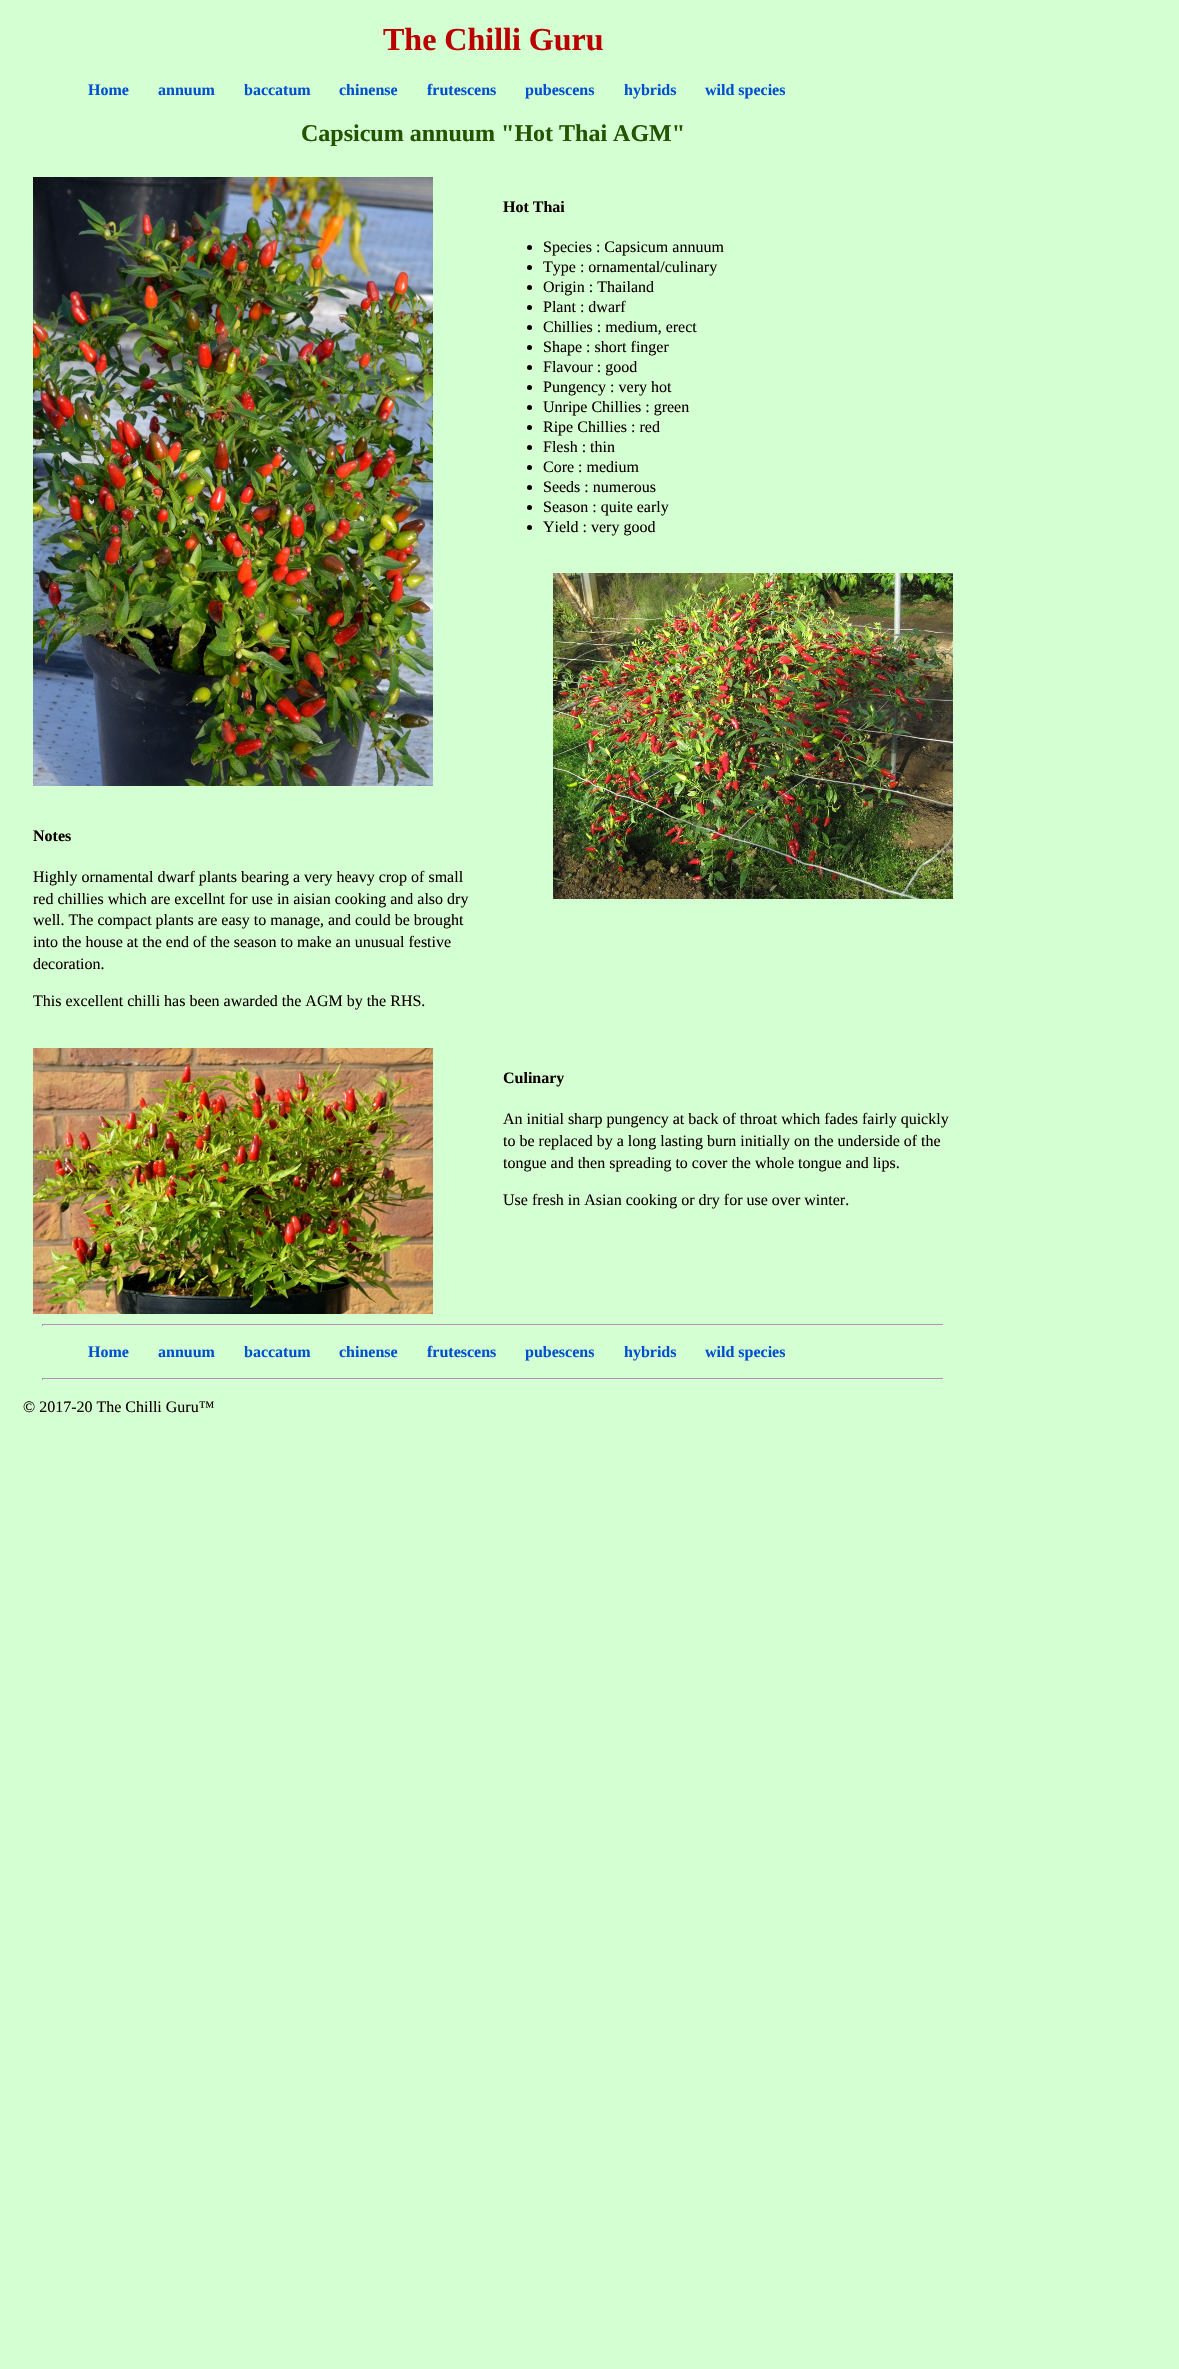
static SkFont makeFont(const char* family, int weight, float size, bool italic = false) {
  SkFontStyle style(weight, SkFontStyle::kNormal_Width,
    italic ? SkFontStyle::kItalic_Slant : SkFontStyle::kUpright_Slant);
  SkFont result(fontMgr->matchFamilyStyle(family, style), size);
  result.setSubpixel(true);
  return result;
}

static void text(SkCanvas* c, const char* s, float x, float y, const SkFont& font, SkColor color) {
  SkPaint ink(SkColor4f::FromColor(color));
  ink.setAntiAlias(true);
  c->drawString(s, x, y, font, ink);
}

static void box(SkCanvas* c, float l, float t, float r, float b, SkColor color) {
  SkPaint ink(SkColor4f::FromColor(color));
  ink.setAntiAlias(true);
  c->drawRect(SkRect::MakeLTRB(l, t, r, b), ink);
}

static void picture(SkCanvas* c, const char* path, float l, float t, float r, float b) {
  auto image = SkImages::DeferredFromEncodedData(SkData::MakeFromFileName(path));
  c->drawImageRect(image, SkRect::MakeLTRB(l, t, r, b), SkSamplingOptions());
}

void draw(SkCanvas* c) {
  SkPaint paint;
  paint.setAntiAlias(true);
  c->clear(0xffd3ffd3);
  SkFont face1 = makeFont("Liberation Serif", 700, 32);
  text(c, "The Chilli Guru", 383, 50, face1, 0xffbb0000);
  SkFont face2 = makeFont("Liberation Serif", 700, 16);
  text(c, "Home", 88, 95, face2, 0xff0050d0);
  text(c, "annuum", 158, 95, face2, 0xff0050d0);
  text(c, "baccatum", 244, 95, face2, 0xff0050d0);
  text(c, "chinense", 339, 95, face2, 0xff0050d0);
  text(c, "frutescens", 427, 95, face2, 0xff0050d0);
  text(c, "pubescens", 525, 95, face2, 0xff0050d0);
  text(c, "hybrids", 624, 95, face2, 0xff0050d0);
  text(c, "wild species", 705, 95, face2, 0xff0050d0);
  SkFont face3 = makeFont("Liberation Serif", 700, 24);
  text(c, "Capsicum annuum \"Hot Thai AGM\"", 301, 141, face3, 0xff225500);
  picture(c, "img_01.png", 33, 177, 433, 786);
  text(c, "Hot Thai", 503, 212, face2, 0xff0f0000);
  paint.setColor(0xff0f0000);
  c->drawCircle(529.5f, 247.5f, 2.5f, paint);
  SkFont face4 = makeFont("Liberation Serif", 400, 16);
  text(c, "Species : Capsicum annuum", 543, 252, face4, 0xff0f0000);
  c->drawCircle(529.5f, 267.5f, 2.5f, paint);
  text(c, "Type : ornamental/culinary", 543, 272, face4, 0xff0f0000);
  c->drawCircle(529.5f, 287.5f, 2.5f, paint);
  text(c, "Origin : Thailand", 543, 292, face4, 0xff0f0000);
  c->drawCircle(529.5f, 307.5f, 2.5f, paint);
  text(c, "Plant : dwarf", 543, 312, face4, 0xff0f0000);
  c->drawCircle(529.5f, 327.5f, 2.5f, paint);
  text(c, "Chillies : medium, erect", 543, 332, face4, 0xff0f0000);
  c->drawCircle(529.5f, 347.5f, 2.5f, paint);
  text(c, "Shape : short finger", 543, 352, face4, 0xff0f0000);
  c->drawCircle(529.5f, 367.5f, 2.5f, paint);
  text(c, "Flavour : good", 543, 372, face4, 0xff0f0000);
  c->drawCircle(529.5f, 387.5f, 2.5f, paint);
  text(c, "Pungency : very hot", 543, 392, face4, 0xff0f0000);
  c->drawCircle(529.5f, 407.5f, 2.5f, paint);
  text(c, "Unripe Chillies : green", 543, 412, face4, 0xff0f0000);
  c->drawCircle(529.5f, 427.5f, 2.5f, paint);
  text(c, "Ripe Chillies : red", 543, 432, face4, 0xff0f0000);
  c->drawCircle(529.5f, 447.5f, 2.5f, paint);
  text(c, "Flesh : thin", 543, 452, face4, 0xff0f0000);
  c->drawCircle(529.5f, 467.5f, 2.5f, paint);
  text(c, "Core : medium", 543, 472, face4, 0xff0f0000);
  c->drawCircle(529.5f, 487.5f, 2.5f, paint);
  text(c, "Seeds : numerous", 543, 492, face4, 0xff0f0000);
  c->drawCircle(529.5f, 507.5f, 2.5f, paint);
  text(c, "Season : quite early", 543, 512, face4, 0xff0f0000);
  c->drawCircle(529.5f, 527.5f, 2.5f, paint);
  text(c, "Yield : very good", 543, 532, face4, 0xff0f0000);
  picture(c, "img_02.png", 553, 573, 953, 899);
  text(c, "Notes", 33, 841, face2, 0xff0f0000);
  text(c, "Highly ornamental dwarf plants bearing a very heavy crop of small", 33, 882, face4, 0xff0f0000);
  text(c, "red chillies which are excellnt for use in aisian cooking and also dry", 33, 904, face4, 0xff0f0000);
  text(c, "well. The compact plants are easy to manage, and could be brought", 33, 925, face4, 0xff0f0000);
  text(c, "into the house at the end of the season to make an unusual festive", 33, 947, face4, 0xff0f0000);
  text(c, "decoration.", 33, 969, face4, 0xff0f0000);
  text(c, "This excellent chilli has been awarded the AGM by the RHS.", 33, 1006, face4, 0xff0f0000);
  picture(c, "img_03.png", 33, 1048, 433, 1314);
  text(c, "Culinary", 503, 1083, face2, 0xff0f0000);
  text(c, "An initial sharp pungency at back of throat which fades fairly quickly", 503, 1124, face4, 0xff0f0000);
  text(c, "to be replaced by a long lasting burn initially on the underside of the", 503, 1146, face4, 0xff0f0000);
  text(c, "tongue and then spreading to cover the whole tongue and lips.", 503, 1168, face4, 0xff0f0000);
  text(c, "Use fresh in Asian cooking or dry for use over winter.", 503, 1205, face4, 0xff0f0000);
  box(c, 42, 1324, 944, 1325, 0xff9f9f9f);
  box(c, 943, 1324, 944, 1326, 0xffeeeeee);
  box(c, 42, 1325, 944, 1326, 0xffeeeeee);
  box(c, 42, 1324, 43, 1326, 0xff9f9f9f);
  text(c, "Home", 88, 1357, face2, 0xff0050d0);
  text(c, "annuum", 158, 1357, face2, 0xff0050d0);
  text(c, "baccatum", 244, 1357, face2, 0xff0050d0);
  text(c, "chinense", 339, 1357, face2, 0xff0050d0);
  text(c, "frutescens", 427, 1357, face2, 0xff0050d0);
  text(c, "pubescens", 525, 1357, face2, 0xff0050d0);
  text(c, "hybrids", 624, 1357, face2, 0xff0050d0);
  text(c, "wild species", 705, 1357, face2, 0xff0050d0);
  box(c, 42, 1378, 944, 1379, 0xff9f9f9f);
  box(c, 943, 1378, 944, 1380, 0xffeeeeee);
  box(c, 42, 1379, 944, 1380, 0xffeeeeee);
  box(c, 42, 1378, 43, 1380, 0xff9f9f9f);
  text(c, "© 2017-20 The Chilli Guru™", 23, 1412, face4, 0xff0f0000);
}
